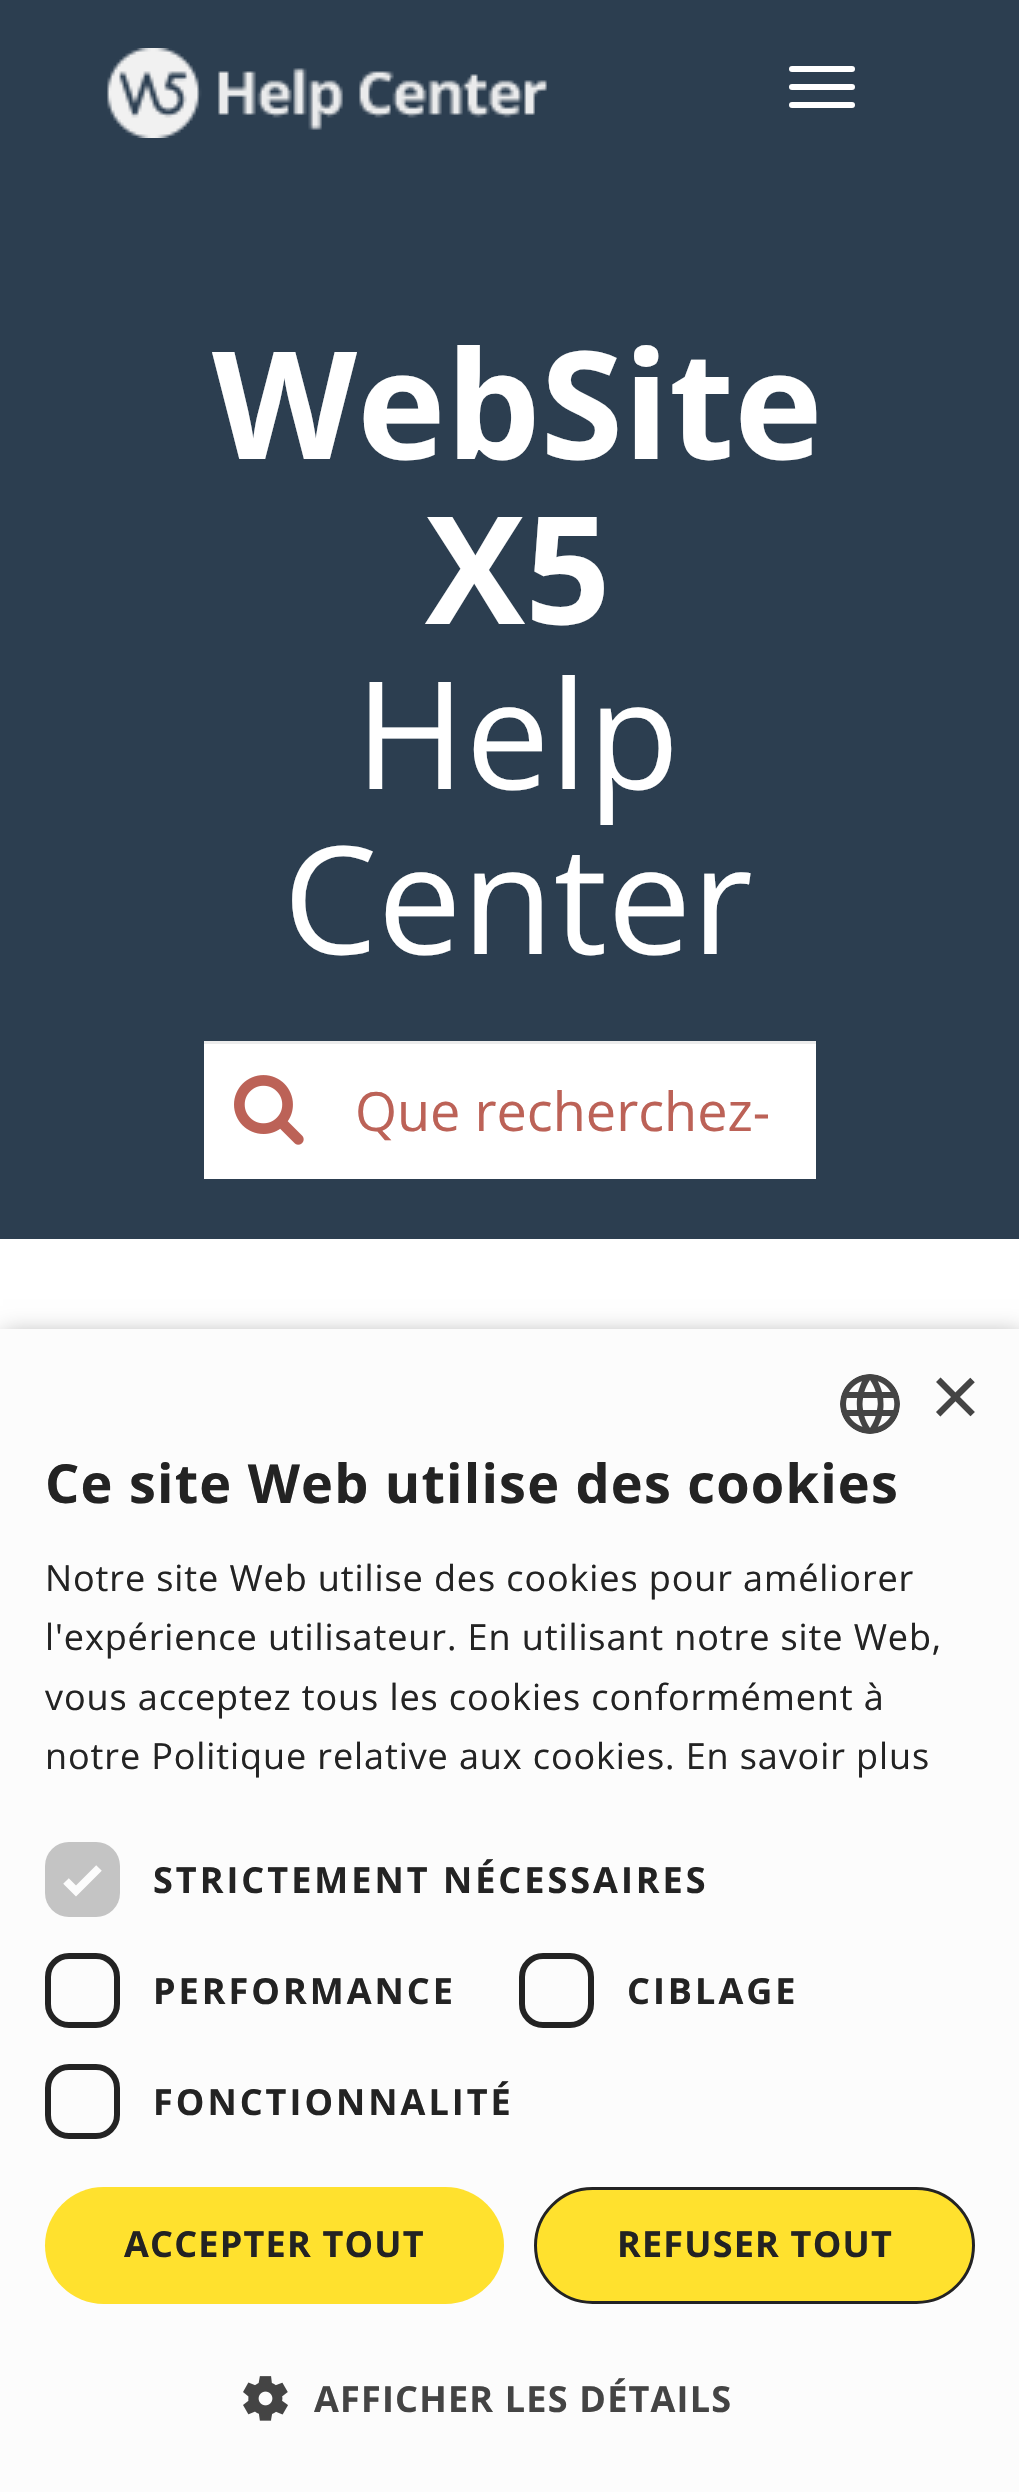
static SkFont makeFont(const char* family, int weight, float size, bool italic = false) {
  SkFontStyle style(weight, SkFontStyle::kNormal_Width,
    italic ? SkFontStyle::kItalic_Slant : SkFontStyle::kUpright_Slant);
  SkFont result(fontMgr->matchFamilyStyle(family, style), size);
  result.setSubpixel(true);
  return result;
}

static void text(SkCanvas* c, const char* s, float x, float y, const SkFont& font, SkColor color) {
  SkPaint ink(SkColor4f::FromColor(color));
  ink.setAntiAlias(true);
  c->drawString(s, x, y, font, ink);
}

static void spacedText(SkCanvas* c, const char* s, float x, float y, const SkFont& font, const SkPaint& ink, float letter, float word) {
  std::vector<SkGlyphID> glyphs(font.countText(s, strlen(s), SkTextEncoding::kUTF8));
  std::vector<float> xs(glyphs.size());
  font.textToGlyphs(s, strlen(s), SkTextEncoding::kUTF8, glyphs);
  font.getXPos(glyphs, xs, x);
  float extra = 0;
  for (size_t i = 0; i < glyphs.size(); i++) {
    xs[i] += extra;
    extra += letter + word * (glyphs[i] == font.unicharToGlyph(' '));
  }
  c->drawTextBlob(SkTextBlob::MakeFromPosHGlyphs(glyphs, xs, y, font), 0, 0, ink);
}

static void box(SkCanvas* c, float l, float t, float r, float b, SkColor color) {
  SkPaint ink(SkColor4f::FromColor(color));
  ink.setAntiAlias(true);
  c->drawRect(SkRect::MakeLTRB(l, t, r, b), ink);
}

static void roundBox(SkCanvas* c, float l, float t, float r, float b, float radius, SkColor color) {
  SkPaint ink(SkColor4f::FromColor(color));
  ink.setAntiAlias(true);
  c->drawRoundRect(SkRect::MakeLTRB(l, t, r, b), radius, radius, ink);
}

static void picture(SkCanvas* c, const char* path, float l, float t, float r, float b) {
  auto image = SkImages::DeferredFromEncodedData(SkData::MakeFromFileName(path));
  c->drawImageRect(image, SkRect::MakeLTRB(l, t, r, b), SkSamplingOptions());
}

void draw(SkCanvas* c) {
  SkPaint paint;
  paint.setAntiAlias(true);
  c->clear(0xffffffff);
  box(c, 0, 0, 1019, 1239, 0xff2c3e50);
  picture(c, "img_01.png", 107, 48, 547, 138);
  roundBox(c, 789, 66, 855, 72, 3, 0xffffffff);
  roundBox(c, 789, 84, 855, 90, 3, 0xffffffff);
  roundBox(c, 789, 102, 855, 108, 3, 0xffffffff);
  SkFont face1 = makeFont("Open Sans", 700, 150);
  text(c, "WebSite", 212, 459, face1, 0xffffffff);
  text(c, "X5", 425, 624, face1, 0xffffffff);
  SkFont face2 = makeFont("Open Sans", 400, 150);
  text(c, "Help", 355, 789, face2, 0xffffffff);
  text(c, "Center", 283, 954, face2, 0xffffffff);
  box(c, 204, 1044, 816, 1179, 0xffffffff);
  picture(c, "img_02.png", 234, 1075, 304, 1145);
  box(c, 204, 1041, 816, 1044, 0xffececec);
  c->save();
  c->clipRect(SkRect::MakeLTRB(354, 1074, 768, 1146));
  SkFont face3 = makeFont("Open Sans", 400, 54);
  text(c, "Que recherchez-", 355, 1131, face3, 0xffbc6257);
  c->restore();
  paint.setColor(0x59000000);
  paint.setMaskFilter(SkMaskFilter::MakeBlur(kNormal_SkBlurStyle, 12));
  c->drawRect(SkRect::MakeLTRB(3, 1335, 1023, 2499), paint);
  paint.setMaskFilter(nullptr);
  box(c, 0, 1329, 1019, 2492, 0xfffcfcfc);
  picture(c, "img_03.png", 840, 1374, 900, 1434);
  SkFont face4 = makeFont("Liberation Sans", 400, 87);
  text(c, "×", 930, 1426, face4, 0xff444444);
  SkFont face5 = makeFont("Open Sans", 700, 54);
  paint.setColor(0xff232323);
  spacedText(c, "Ce site Web utilise des cookies", 45, 1503, face5, paint, 1.2f, 0);
  SkFont face6 = makeFont("Open Sans", 400, 36);
  spacedText(c, "Notre site Web utilise des cookies pour améliorer", 45, 1591, face6, paint, 0.9f, 0);
  spacedText(c, "l'expérience utilisateur. En utilisant notre site Web,", 45, 1650, face6, paint, 0.9f, 0);
  spacedText(c, "vous acceptez tous les cookies conformément à", 45, 1710, face6, paint, 0.9f, 0);
  spacedText(c, "notre Politique relative aux cookies. En savoir plus", 45, 1769, face6, paint, 0.9f, 0);
  roundBox(c, 45, 1842, 120, 1917, 24, 0xffc4c4c4);
  paint.setStyle(SkPaint::kStroke_Style);
  paint.setStrokeWidth(7.9f);
  paint.setColor(0xfffcfcfc);
  c->drawPath(SkPathBuilder().moveTo(66, 1881).lineTo(76, 1891).lineTo(99, 1868).detach(), paint);
  SkFont face7 = makeFont("Open Sans", 700, 36);
  paint.setStyle(SkPaint::kFill_Style);
  paint.setColor(0xff232323);
  spacedText(c, "STRICTEMENT NÉCESSAIRES", 153, 1893, face7, paint, 3, 0);
  paint.setStyle(SkPaint::kStroke_Style);
  paint.setStrokeWidth(6);
  c->drawRoundRect(SkRect::MakeLTRB(48, 1956, 117, 2025), 21, 21, paint);
  paint.setStyle(SkPaint::kFill_Style);
  spacedText(c, "PERFORMANCE", 153, 2004, face7, paint, 3, 0);
  paint.setStyle(SkPaint::kStroke_Style);
  c->drawRoundRect(SkRect::MakeLTRB(522, 1956, 591, 2025), 21, 21, paint);
  paint.setStyle(SkPaint::kFill_Style);
  spacedText(c, "CIBLAGE", 627, 2004, face7, paint, 3, 0);
  paint.setStyle(SkPaint::kStroke_Style);
  c->drawRoundRect(SkRect::MakeLTRB(48, 2067, 117, 2136), 21, 21, paint);
  paint.setStyle(SkPaint::kFill_Style);
  spacedText(c, "FONCTIONNALITÉ", 153, 2115, face7, paint, 3, 0);
  roundBox(c, 45, 2187, 504, 2304, 58.5f, 0xffffe12e);
  spacedText(c, "ACCEPTER TOUT", 124, 2257, face7, paint, 1.2f, 0);
  paint.setColor(0xffffe12e);
  c->drawRoundRect(SkRect::MakeLTRB(535.5f, 2188.5f, 973.5f, 2302.5f), 57, 57, paint);
  paint.setStyle(SkPaint::kStroke_Style);
  paint.setStrokeWidth(3);
  paint.setColor(0xff232323);
  c->drawRoundRect(SkRect::MakeLTRB(535.5f, 2188.5f, 973.5f, 2302.5f), 57, 57, paint);
  paint.setStyle(SkPaint::kFill_Style);
  spacedText(c, "REFUSER TOUT", 617, 2257, face7, paint, 1.2f, 0);
  picture(c, "img_04.png", 243, 2376, 288, 2421);
  paint.setColor(0xff444444);
  spacedText(c, "AFFICHER LES DÉTAILS", 314, 2412, face7, paint, 1.2f, 0);
}
